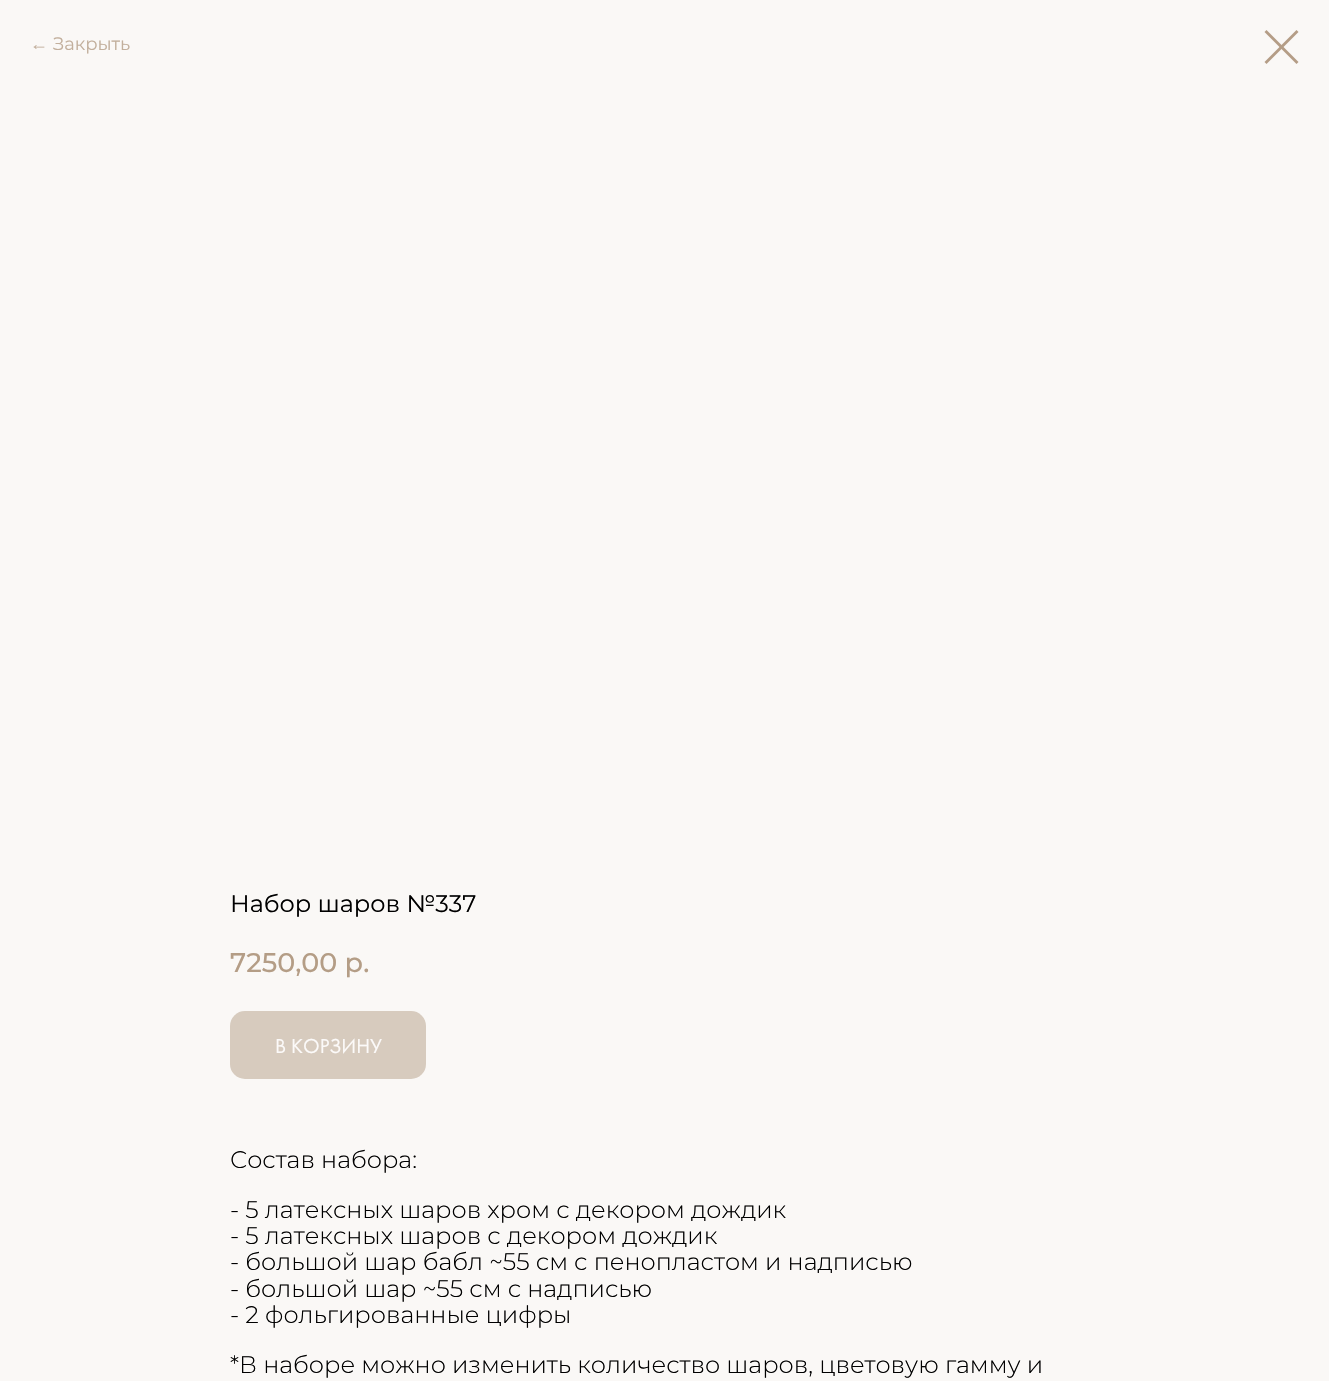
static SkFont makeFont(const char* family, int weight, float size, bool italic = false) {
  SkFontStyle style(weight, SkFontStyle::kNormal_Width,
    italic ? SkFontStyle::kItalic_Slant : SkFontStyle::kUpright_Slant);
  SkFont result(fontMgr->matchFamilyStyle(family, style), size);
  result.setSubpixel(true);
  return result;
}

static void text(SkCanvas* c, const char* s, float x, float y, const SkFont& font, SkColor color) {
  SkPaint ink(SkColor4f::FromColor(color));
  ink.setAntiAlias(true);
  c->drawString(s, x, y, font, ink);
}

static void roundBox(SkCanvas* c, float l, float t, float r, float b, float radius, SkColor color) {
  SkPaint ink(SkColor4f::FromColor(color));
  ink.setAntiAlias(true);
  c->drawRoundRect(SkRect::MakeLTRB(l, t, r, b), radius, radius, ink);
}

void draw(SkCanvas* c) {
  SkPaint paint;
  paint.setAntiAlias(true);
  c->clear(0xfffaf8f6);
  SkFont face1 = makeFont("Liberation Sans", 400, 18);
  text(c, "←", 30, 50, face1, 0xffc2af9c);
  SkFont face2 = makeFont("Montserrat", 400, 18);
  text(c, "Закрыть", 53, 50, face2, 0xffc2af9c);
  paint.setColor(0xffb49d86);
  c->drawPath(SkPathBuilder(SkPathFillType::kEvenOdd).moveTo(1264.5f, 32).lineTo(1266.5f, 30).lineTo(1298.5f, 62).lineTo(1296.5f, 64).close().detach(), paint);
  c->drawPath(SkPathBuilder(SkPathFillType::kEvenOdd).moveTo(1296.5f, 30).lineTo(1298.5f, 32).lineTo(1266.5f, 64).lineTo(1264.5f, 62).close().detach(), paint);
  SkFont face3 = makeFont("Montserrat", 400, 24);
  text(c, "Набор шаров №337", 230, 912, face3, 0xff000000);
  SkFont face4 = makeFont("Montserrat", 500, 27);
  text(c, "7250,00 р.", 230, 972, face4, 0xffb49d86);
  roundBox(c, 230, 1011, 426, 1079, 15, 0xffd7cbbe);
  SkFont face5 = makeFont("Futura PT", 400, 21);
  text(c, "В КОРЗИНУ", 275, 1053, face5, 0xfffcfaf9);
  SkFont face6 = makeFont("Montserrat", 300, 24);
  text(c, "Состав набора:", 230, 1168, face6, 0xff000000);
  text(c, "- 5 латексных шаров хром с декором дождик", 230, 1218, face6, 0xff000000);
  text(c, "- 5 латексных шаров с декором дождик", 230, 1244, face6, 0xff000000);
  text(c, "- большой шар бабл ~55 см с пенопластом и надписью", 230, 1270, face6, 0xff000000);
  text(c, "- большой шар ~55 см с надписью", 230, 1297, face6, 0xff000000);
  text(c, "- 2 фольгированные цифры", 230, 1323, face6, 0xff000000);
  text(c, "*В наборе можно изменить количество шаров, цветовую гамму и", 230, 1373, face6, 0xff000000);
}
